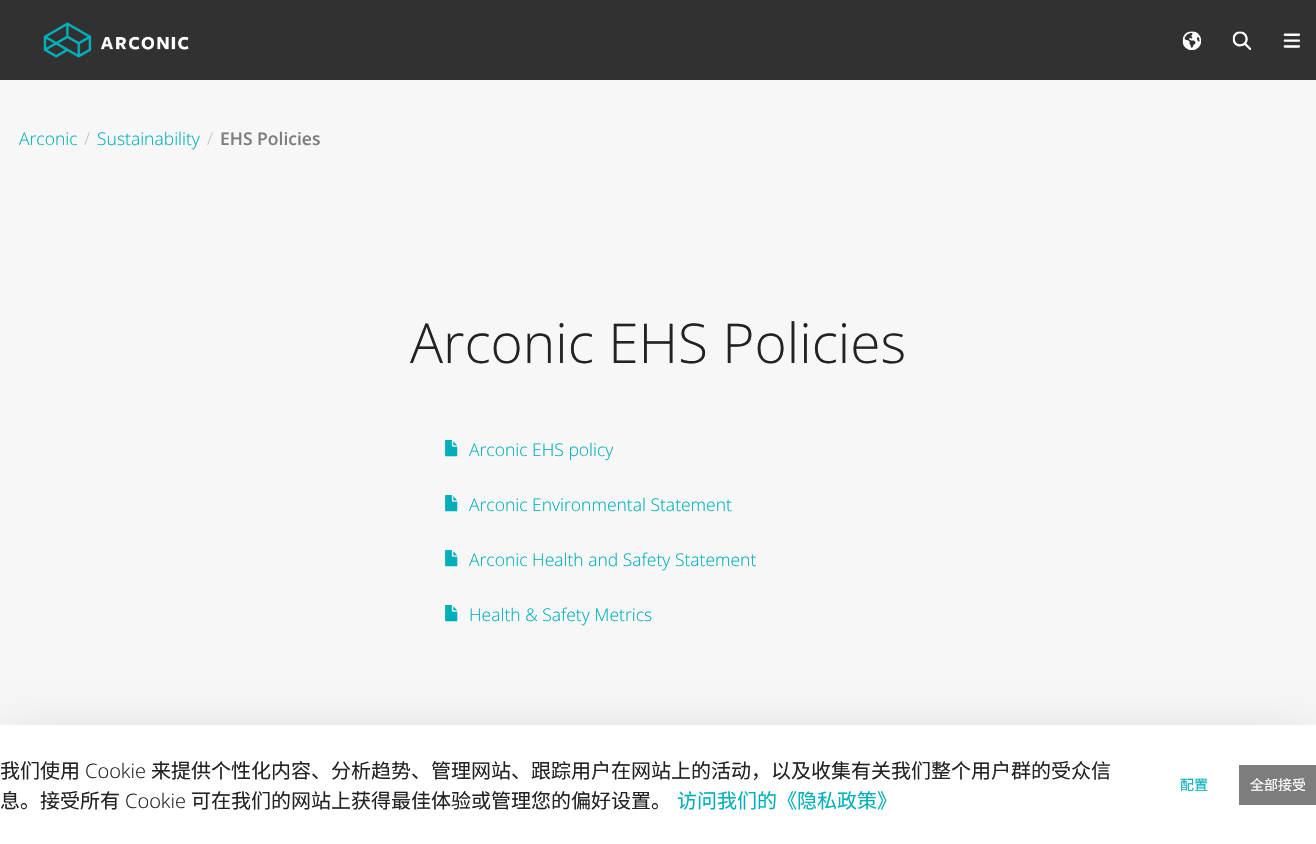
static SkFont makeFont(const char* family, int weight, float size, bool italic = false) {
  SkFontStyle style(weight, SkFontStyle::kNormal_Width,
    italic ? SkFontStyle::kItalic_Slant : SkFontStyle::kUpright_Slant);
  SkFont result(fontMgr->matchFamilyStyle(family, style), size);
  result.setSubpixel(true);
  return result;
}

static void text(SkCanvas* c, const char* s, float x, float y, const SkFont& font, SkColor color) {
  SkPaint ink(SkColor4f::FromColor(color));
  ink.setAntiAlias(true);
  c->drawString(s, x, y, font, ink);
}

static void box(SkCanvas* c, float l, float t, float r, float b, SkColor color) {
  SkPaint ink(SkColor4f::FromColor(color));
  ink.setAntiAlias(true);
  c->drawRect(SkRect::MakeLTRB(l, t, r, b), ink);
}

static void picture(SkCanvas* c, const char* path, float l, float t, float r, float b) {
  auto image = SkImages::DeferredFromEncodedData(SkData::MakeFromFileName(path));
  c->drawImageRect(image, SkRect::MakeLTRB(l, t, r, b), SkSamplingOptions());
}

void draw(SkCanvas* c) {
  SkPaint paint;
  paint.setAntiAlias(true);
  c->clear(0xfff7f7f8);
  box(c, 0, 0, 1316, 80, 0xff313132);
  picture(c, "img_01.png", 43, 22, 189, 58);
  picture(c, "img_02.png", 1182, 31, 1201, 50);
  picture(c, "img_03.png", 1232, 31, 1251, 50);
  picture(c, "img_04.png", 1283, 33, 1300, 48);
  SkFont face1 = makeFont("Open Sans", 300, 17.5f);
  text(c, "Arconic", 19, 145, face1, 0xff00afba);
  text(c, "/", 84, 145, face1, 0xffc5c5c5);
  text(c, "Sustainability", 97, 145, face1, 0xff00afba);
  text(c, "/", 207, 145, face1, 0xffc5c5c5);
  SkFont face2 = makeFont("Open Sans", 600, 17.5f);
  text(c, "EHS Policies", 220, 145, face2, 0xff7d7d7d);
  SkFont face3 = makeFont("Open Sans", 300, 55);
  text(c, "Arconic EHS Policies", 410, 363, face3, 0xff222222);
  picture(c, "img_05.png", 445, 440, 458, 457);
  text(c, "Arconic EHS policy", 469, 456, face1, 0xff00afba);
  picture(c, "img_05.png", 445, 495, 458, 512);
  text(c, "Arconic Environmental Statement", 469, 511, face1, 0xff00afba);
  picture(c, "img_05.png", 445, 550, 458, 567);
  text(c, "Arconic Health and Safety Statement", 469, 566, face1, 0xff00afba);
  picture(c, "img_05.png", 445, 605, 458, 622);
  text(c, "Health & Safety Metrics", 469, 621, face1, 0xff00afba);
  paint.setColor(0x2e000000);
  paint.setMaskFilter(SkMaskFilter::MakeBlur(kNormal_SkBlurStyle, 30));
  c->drawRect(SkRect::MakeLTRB(0, 745, 1316, 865), paint);
  paint.setMaskFilter(nullptr);
  box(c, 0, 725, 1316, 844, 0xffffffff);
  SkFont face4 = makeFont("Noto Sans CJK SC", 400, 20);
  text(c, "我们使用", 0, 778, face4, 0xff222222);
  SkFont face5 = makeFont("Open Sans", 300, 20);
  text(c, "Cookie", 85, 778, face5, 0xff222222);
  text(c, "来提供个性化内容、分析趋势、管理网站、跟踪用户在网站上的活动，以及收集有关我们整个用户群的受众信", 151, 778, face4, 0xff222222);
  text(c, "息。接受所有", 0, 808, face4, 0xff222222);
  text(c, "Cookie", 125, 808, face5, 0xff222222);
  text(c, "可在我们的网站上获得最佳体验或管理您的偏好设置。", 191, 808, face4, 0xff222222);
  text(c, "访问我们的《隐私政策》", 677, 808, face4, 0xff00afba);
  SkFont face6 = makeFont("Noto Sans CJK SC", 400, 14);
  text(c, "配置", 1180, 790, face6, 0xff00afba);
  box(c, 1239, 765, 1316, 805, 0xff7d7d7d);
  text(c, "全部接受", 1250, 790, face6, 0xffffffff);
}
